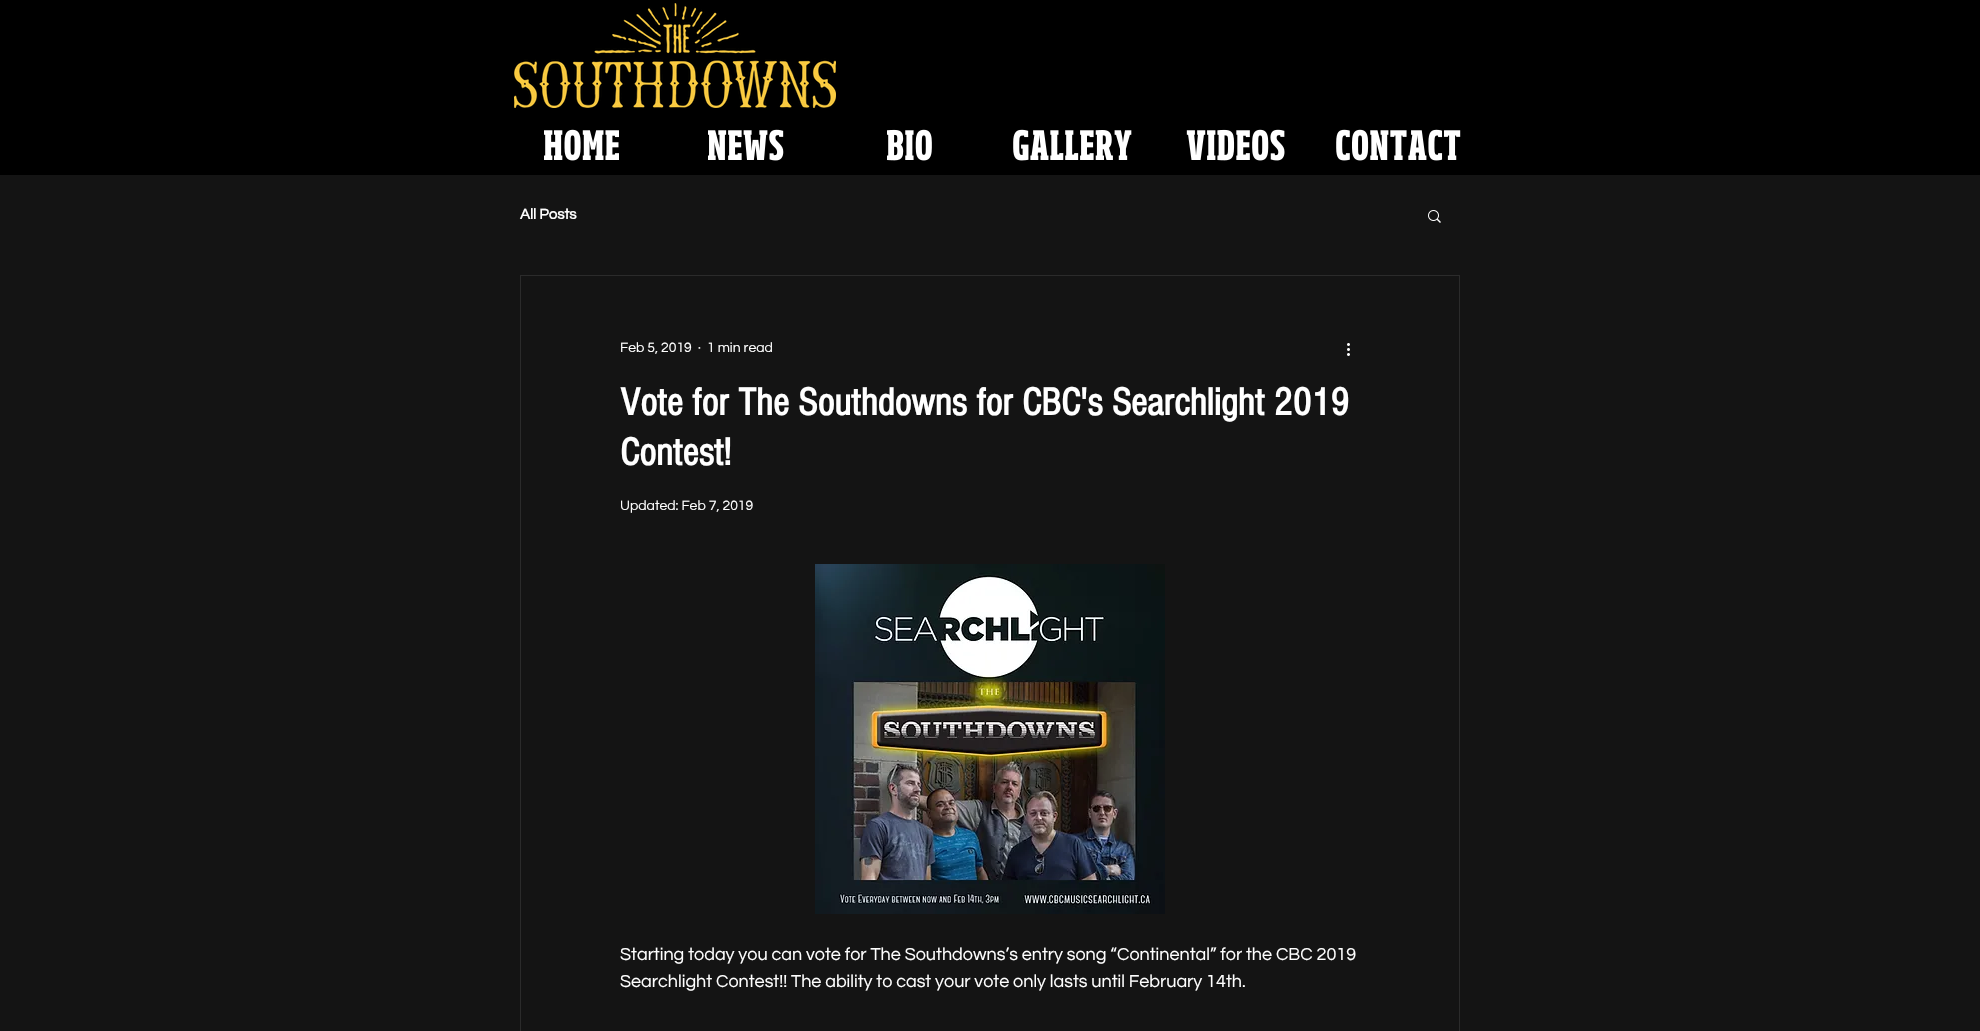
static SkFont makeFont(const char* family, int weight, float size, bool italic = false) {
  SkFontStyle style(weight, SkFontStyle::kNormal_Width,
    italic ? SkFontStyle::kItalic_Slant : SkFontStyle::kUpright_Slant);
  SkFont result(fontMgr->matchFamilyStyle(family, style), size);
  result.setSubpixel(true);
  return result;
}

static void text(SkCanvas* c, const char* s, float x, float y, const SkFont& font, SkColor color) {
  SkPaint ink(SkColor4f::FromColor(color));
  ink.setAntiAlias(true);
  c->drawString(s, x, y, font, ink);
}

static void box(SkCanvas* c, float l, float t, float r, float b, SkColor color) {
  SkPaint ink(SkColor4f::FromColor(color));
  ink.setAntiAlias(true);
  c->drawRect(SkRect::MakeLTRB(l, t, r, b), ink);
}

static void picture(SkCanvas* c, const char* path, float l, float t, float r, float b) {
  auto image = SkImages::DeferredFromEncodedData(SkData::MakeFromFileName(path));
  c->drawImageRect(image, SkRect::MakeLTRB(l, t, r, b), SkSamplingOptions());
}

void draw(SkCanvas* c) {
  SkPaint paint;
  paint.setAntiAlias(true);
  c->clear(0xff141414);
  box(c, 0, 0, 1980, 175, 0xff000000);
  picture(c, "img_01.png", 514, 3, 836, 108);
  picture(c, "img_02.png", 544, 129, 619, 161);
  picture(c, "img_03.png", 708, 129, 784, 161);
  picture(c, "img_04.png", 887, 129, 932, 161);
  picture(c, "img_05.png", 1013, 129, 1132, 161);
  picture(c, "img_06.png", 1186, 129, 1285, 161);
  picture(c, "img_07.png", 1336, 129, 1461, 161);
  SkFont face1 = makeFont("Questrial", 700, 15);
  text(c, "All Posts", 520, 219, face1, 0xffffffff);
  picture(c, "img_08.png", 1428, 210, 1441, 223);
  paint.setStyle(SkPaint::kStroke_Style);
  paint.setStrokeWidth(1);
  paint.setColor(0xff2b2b2b);
  c->drawRect(SkRect::MakeLTRB(520.5f, 275.5f, 1459.5f, 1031.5f), paint);
  SkFont face2 = makeFont("Questrial", 400, 14);
  text(c, "Feb 5, 2019", 620, 352, face2, 0xffffffff);
  text(c, "·", 698, 352, face2, 0xffffffff);
  text(c, "1 min read", 707, 352, face2, 0xffffffff);
  picture(c, "img_09.png", 1347, 343, 1350, 356);
  SkFont face3 = makeFont("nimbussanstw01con", 700, 40);
  text(c, "Vote for The Southdowns for CBC's Searchlight 2019", 620, 415, face3, 0xffffffff);
  text(c, "Contest!", 620, 465, face3, 0xffffffff);
  text(c, "Updated: Feb 7, 2019", 620, 510, face2, 0xffffffff);
  picture(c, "img_10.png", 815, 564, 1165, 914);
  SkFont face4 = makeFont("Questrial", 400, 18);
  text(c, "Starting today you can vote for The Southdowns’s entry song “Continental” for the CBC 2019", 620, 960, face4, 0xffffffff);
  text(c, "Searchlight Contest!! The ability to cast your vote only lasts until February 14th.", 620, 987, face4, 0xffffffff);
}
